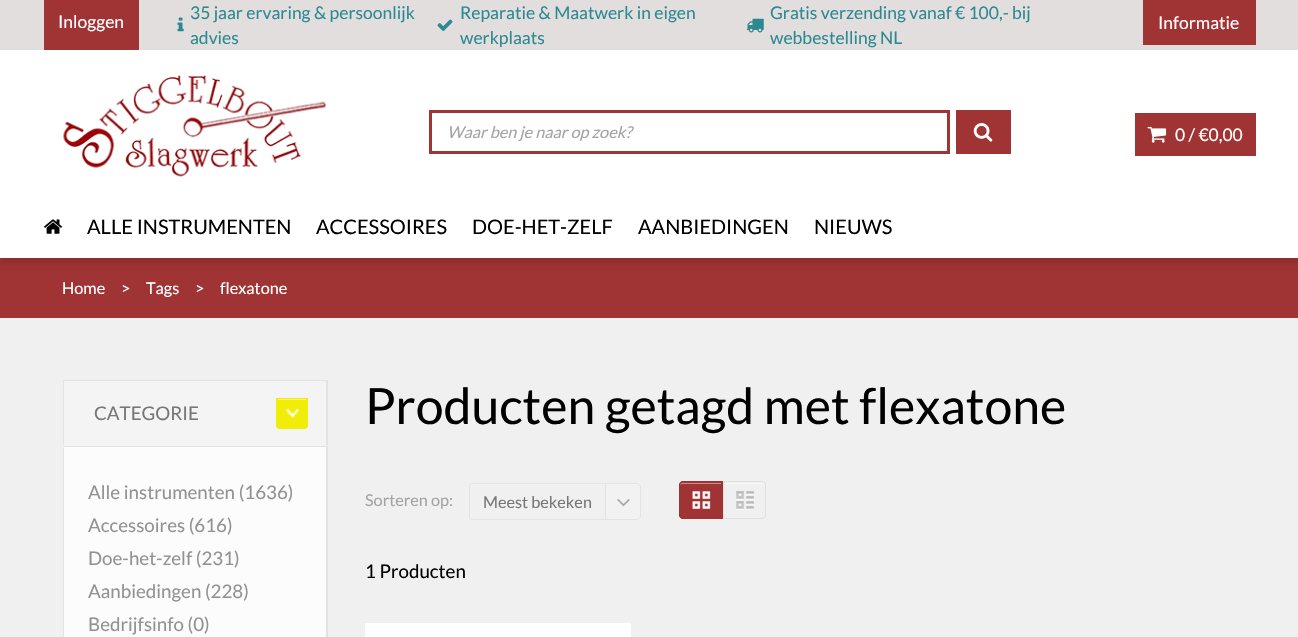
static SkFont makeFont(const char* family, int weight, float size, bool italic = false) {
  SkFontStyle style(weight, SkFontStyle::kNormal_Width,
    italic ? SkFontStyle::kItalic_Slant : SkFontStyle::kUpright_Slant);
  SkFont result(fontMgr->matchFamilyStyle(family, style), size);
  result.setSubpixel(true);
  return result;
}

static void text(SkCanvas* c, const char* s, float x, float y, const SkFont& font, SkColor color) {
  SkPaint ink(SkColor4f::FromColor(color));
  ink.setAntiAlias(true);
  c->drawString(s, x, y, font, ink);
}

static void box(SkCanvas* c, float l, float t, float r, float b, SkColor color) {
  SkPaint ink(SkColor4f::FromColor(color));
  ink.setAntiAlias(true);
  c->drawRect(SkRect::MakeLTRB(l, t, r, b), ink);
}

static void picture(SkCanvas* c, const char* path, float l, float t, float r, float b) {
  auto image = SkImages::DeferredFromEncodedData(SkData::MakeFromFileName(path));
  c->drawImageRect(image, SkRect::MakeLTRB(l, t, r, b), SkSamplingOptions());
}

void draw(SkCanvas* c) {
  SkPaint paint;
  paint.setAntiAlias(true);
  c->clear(0xfff1f0f0);
  box(c, 0, 0, 1298, 50, 0xffe2dede);
  box(c, 44, 0, 139, 50, 0xffa03333);
  SkFont face1 = makeFont("Lato", 400, 17.5f);
  text(c, "Inloggen", 58, 28, face1, 0xffffffff);
  picture(c, "img_01.png", 177, 17, 184, 32);
  text(c, "35 jaar ervaring & persoonlijk", 190, 19, face1, 0xff2c8991);
  text(c, "advies", 190, 44, face1, 0xff2c8991);
  picture(c, "img_02.png", 437, 19, 453, 32);
  text(c, "Reparatie & Maatwerk in eigen", 460, 19, face1, 0xff2c8991);
  text(c, "werkplaats", 460, 44, face1, 0xff2c8991);
  picture(c, "img_03.png", 746, 18, 764, 33);
  text(c, "Gratis verzending vanaf € 100,- bij", 770, 19, face1, 0xff2c8991);
  text(c, "webbestelling NL", 770, 44, face1, 0xff2c8991);
  box(c, 1143, 0, 1256, 45, 0xffa03333);
  text(c, "Informatie", 1158, 29, face1, 0xffffffff);
  box(c, 0, 50, 1298, 196, 0xffffffff);
  picture(c, "img_04.png", 62, 75, 326, 177);
  paint.setStyle(SkPaint::kStroke_Style);
  paint.setStrokeWidth(3);
  paint.setColor(0xffa03333);
  c->drawRect(SkRect::MakeLTRB(430.5f, 111.5f, 948.5f, 152.5f), paint);
  SkFont face2 = makeFont("Lato", 400, 16.25f, true);
  text(c, "Waar ben je naar op zoek?", 447, 138, face2, 0xffa4a4a4);
  box(c, 956, 110, 1011, 154, 0xffa03333);
  picture(c, "img_05.png", 973, 123, 993, 142);
  box(c, 1135, 113, 1256, 156, 0xffa03333);
  picture(c, "img_06.png", 1147, 126, 1167, 143);
  text(c, "0 / €0,00", 1175, 141, face1, 0xffffffff);
  box(c, 0, 258, 1298, 318, 0xffa03333);
  paint.setStyle(SkPaint::kFill_Style);
  paint.setColor(0x1a000000);
  paint.setMaskFilter(SkMaskFilter::MakeBlur(kNormal_SkBlurStyle, 2.5f));
  c->drawRect(SkRect::MakeLTRB(0, 203, 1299, 264), paint);
  paint.setMaskFilter(nullptr);
  box(c, 0, 196, 1298, 258, 0xffffffff);
  picture(c, "img_07.png", 44, 219, 62, 234);
  SkFont face3 = makeFont("Lato", 400, 20);
  text(c, "ALLE INSTRUMENTEN", 87, 234, face3, 0xff000000);
  text(c, "ACCESSOIRES", 316, 234, face3, 0xff000000);
  text(c, "DOE-HET-ZELF", 472, 234, face3, 0xff000000);
  text(c, "AANBIEDINGEN", 638, 234, face3, 0xff000000);
  text(c, "NIEUWS", 814, 234, face3, 0xff000000);
  SkFont face4 = makeFont("Lato", 400, 16.25f);
  text(c, "Home", 62, 294, face4, 0xffffffff);
  text(c, ">", 121, 294, face4, 0xffffffff);
  text(c, "Tags", 146, 294, face4, 0xffffffff);
  text(c, ">", 195, 294, face4, 0xffffffff);
  text(c, "flexatone", 220, 294, face4, 0xffffffff);
  box(c, 63, 381, 328, 446, 0xfff4f4f4);
  box(c, 63, 380, 328, 381, 0xffe4e2e2);
  paint.setColor(0xffe4e2e2);
  c->drawPath(SkPathBuilder().moveTo(328, 380).lineTo(328, 446).lineTo(326, 445).lineTo(326, 381).close().detach(), paint);
  c->save();
  c->clipRect(SkRect::MakeLTRB(63, 380, 328, 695));
  c->drawPath(SkPathBuilder().moveTo(62, 446).lineTo(62, 380).lineTo(64, 381).lineTo(64, 445).close().detach(), paint);
  c->restore();
  SkFont face5 = makeFont("Lato", 400, 18.75f);
  text(c, "CATEGORIE", 94, 420, face5, 0xff777777);
  paint.setColor(0xfff2ed08);
  c->drawPath(SkPathBuilder().moveTo(276, 398).lineTo(308, 398).lineTo(308, 425).cubicTo(308, 427, 306, 429, 304, 429).lineTo(280, 429).cubicTo(278, 429, 276, 427, 276, 425).close().detach(), paint);
  picture(c, "img_08.png", 286, 408, 299, 418);
  box(c, 278, 399, 306, 400, 0xfff7f46b);
  paint.setStyle(SkPaint::kStroke_Style);
  paint.setStrokeWidth(1);
  c->drawPath(SkPathBuilder().moveTo(276.5f, 398.5f).lineTo(307.5f, 398.5f).lineTo(307.5f, 425).cubicTo(307.5f, 427, 306, 428.5f, 304, 428.5f).lineTo(280, 428.5f).cubicTo(278, 428.5f, 276.5f, 427, 276.5f, 425).close().detach(), paint);
  box(c, 63, 447, 327, 637, 0xfffcfcfc);
  box(c, 63, 446, 328, 447, 0xffe4e2e2);
  paint.setStyle(SkPaint::kFill_Style);
  paint.setColor(0xffe4e2e2);
  c->drawPath(SkPathBuilder().moveTo(328, 446).lineTo(328, 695).lineTo(326, 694).lineTo(326, 448).close().detach(), paint);
  c->save();
  c->clipRect(SkRect::MakeLTRB(63, 380, 328, 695));
  c->drawPath(SkPathBuilder().moveTo(62, 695).lineTo(62, 446).lineTo(64, 448).lineTo(64, 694).close().detach(), paint);
  c->restore();
  text(c, "Alle instrumenten (1636)", 88, 499, face5, 0xff939292);
  text(c, "Accessoires (616)", 88, 532, face5, 0xff939292);
  text(c, "Doe-het-zelf (231)", 88, 565, face5, 0xff939292);
  text(c, "Aanbiedingen (228)", 88, 598, face5, 0xff939292);
  text(c, "Bedrijfsinfo (0)", 88, 631, face5, 0xff939292);
  SkFont face6 = makeFont("Lato", 400, 50);
  text(c, "Producten getagd met flexatone", 365, 424, face6, 0xff000000);
  text(c, "Sorteren op:", 365, 506, face4, 0xffa4a4a4);
  paint.setStyle(SkPaint::kStroke_Style);
  c->drawPath(SkPathBuilder().moveTo(471.5f, 483.5f).lineTo(605.5f, 483.5f).lineTo(605.5f, 519.5f).lineTo(471.5f, 519.5f).cubicTo(470.5f, 519.5f, 469.5f, 518.5f, 469.5f, 517.5f).lineTo(469.5f, 485.5f).cubicTo(469.5f, 484.5f, 470.5f, 483.5f, 471.5f, 483.5f).close().detach(), paint);
  text(c, "Meest bekeken", 483, 508, face4, 0xff777777);
  paint.setStyle(SkPaint::kFill_Style);
  paint.setColor(0xfff2f2f2);
  c->drawPath(SkPathBuilder().moveTo(605.5f, 483.5f).lineTo(637, 483.5f).cubicTo(639, 483.5f, 640.5f, 485, 640.5f, 487).lineTo(640.5f, 516).cubicTo(640.5f, 518, 639, 519.5f, 637, 519.5f).lineTo(605.5f, 519.5f).close().detach(), paint);
  paint.setStyle(SkPaint::kStroke_Style);
  paint.setColor(0xffe4e2e2);
  c->drawPath(SkPathBuilder().moveTo(605.5f, 483.5f).lineTo(637, 483.5f).cubicTo(639, 483.5f, 640.5f, 485, 640.5f, 487).lineTo(640.5f, 516).cubicTo(640.5f, 518, 639, 519.5f, 637, 519.5f).lineTo(605.5f, 519.5f).close().detach(), paint);
  picture(c, "img_09.png", 617, 499, 630, 507);
  paint.setStyle(SkPaint::kFill_Style);
  paint.setColor(0xffa03333);
  c->drawPath(SkPathBuilder().moveTo(683, 481).lineTo(723, 481).lineTo(723, 519).lineTo(683, 519).cubicTo(681, 519, 679, 517, 679, 515).lineTo(679, 485).cubicTo(679, 483, 681, 481, 683, 481).close().detach(), paint);
  picture(c, "img_10.png", 692, 491, 711, 509);
  paint.setColor(0xffcb8f8f);
  c->drawPath(SkPathBuilder().moveTo(682, 484).lineTo(721, 484).lineTo(721, 483).lineTo(682, 483).cubicTo(681, 483, 680, 484, 680, 486).cubicTo(680, 485, 681, 484, 682, 484).close().detach(), paint);
  paint.setStyle(SkPaint::kStroke_Style);
  paint.setColor(0xffa03333);
  c->drawPath(SkPathBuilder().moveTo(683, 481.5f).lineTo(722.5f, 481.5f).lineTo(722.5f, 518.5f).lineTo(683, 518.5f).cubicTo(681, 518.5f, 679.5f, 517, 679.5f, 515).lineTo(679.5f, 485).cubicTo(679.5f, 483, 681, 481.5f, 683, 481.5f).close().detach(), paint);
  picture(c, "img_11.png", 736, 491, 754, 510);
  paint.setStyle(SkPaint::kFill_Style);
  paint.setColor(0xfff8f8f8);
  c->drawPath(SkPathBuilder().moveTo(724, 484).lineTo(762, 484).cubicTo(764, 484, 765, 485, 765, 486).cubicTo(765, 484, 764, 483, 762, 483).lineTo(724, 483).close().detach(), paint);
  paint.setStyle(SkPaint::kStroke_Style);
  paint.setColor(0xffe0e0e0);
  c->drawPath(SkPathBuilder().moveTo(723.5f, 481.5f).lineTo(762, 481.5f).cubicTo(764, 481.5f, 765.5f, 483, 765.5f, 485).lineTo(765.5f, 515).cubicTo(765.5f, 517, 764, 518.5f, 762, 518.5f).lineTo(723.5f, 518.5f).close().detach(), paint);
  text(c, "1 Producten", 365, 578, face5, 0xff000000);
  box(c, 365, 623, 631, 637, 0xffffffff);
}
